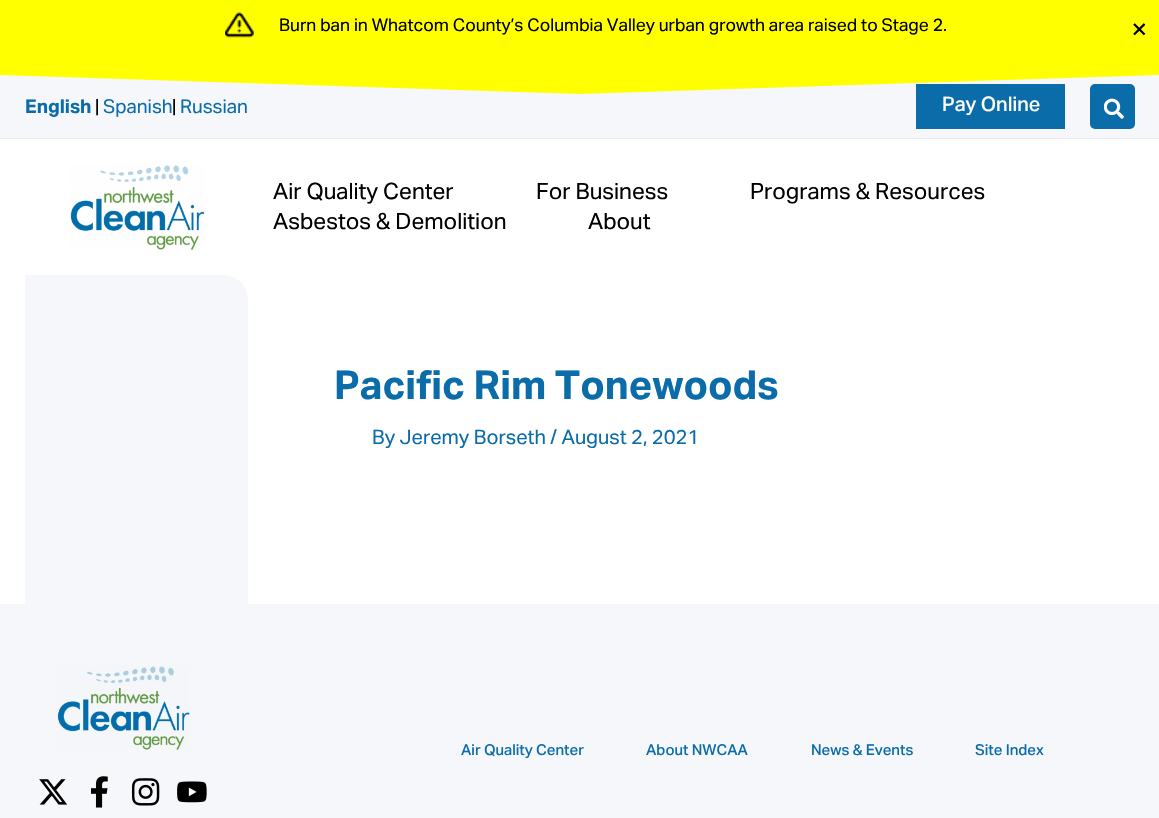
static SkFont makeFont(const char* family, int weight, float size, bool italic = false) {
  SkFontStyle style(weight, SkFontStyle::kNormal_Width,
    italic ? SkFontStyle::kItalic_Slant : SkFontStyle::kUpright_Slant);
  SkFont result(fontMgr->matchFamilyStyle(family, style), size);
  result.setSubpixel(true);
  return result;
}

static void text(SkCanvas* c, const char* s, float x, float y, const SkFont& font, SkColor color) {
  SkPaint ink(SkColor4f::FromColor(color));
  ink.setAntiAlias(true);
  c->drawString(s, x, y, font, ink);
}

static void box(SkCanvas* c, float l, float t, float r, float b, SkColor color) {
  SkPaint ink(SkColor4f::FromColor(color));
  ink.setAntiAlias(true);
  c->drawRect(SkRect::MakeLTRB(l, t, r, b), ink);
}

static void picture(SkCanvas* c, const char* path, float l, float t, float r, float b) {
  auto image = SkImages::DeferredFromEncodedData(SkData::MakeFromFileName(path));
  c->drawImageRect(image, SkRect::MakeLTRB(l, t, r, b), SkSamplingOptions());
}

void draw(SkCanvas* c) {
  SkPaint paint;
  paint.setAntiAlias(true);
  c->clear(0xffffffff);
  box(c, 0, 0, 1159, 75, 0xffffff00);
  picture(c, "img_01.png", 225, 12, 254, 38);
  SkFont face1 = makeFont("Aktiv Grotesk", 400, 17.5f);
  text(c, "Burn ban in Whatcom County’s Columbia Valley urban growth area raised to Stage 2.", 279, 31, face1, 0xff000000);
  SkFont face2 = makeFont("Aktiv Grotesk", 400, 28);
  text(c, "×", 1131, 39, face2, 0xff000000);
  box(c, 0, 75, 1159, 138, 0xfff6f7fa);
  box(c, 916, 84, 1065, 129, 0xff0a6ca9);
  paint.setColor(0xff0a6ca9);
  c->drawRoundRect(SkRect::MakeLTRB(1091.5f, 85.5f, 1133.5f, 127.5f), 3.5f, 3.5f, paint);
  paint.setStyle(SkPaint::kStroke_Style);
  paint.setStrokeWidth(3);
  c->drawRoundRect(SkRect::MakeLTRB(1091.5f, 85.5f, 1133.5f, 127.5f), 3.5f, 3.5f, paint);
  paint.setStyle(SkPaint::kFill_Style);
  paint.setColor(0xffffff00);
  c->drawPath(SkPathBuilder().moveTo(0, 75).lineTo(580, 94).lineTo(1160, 75).close().detach(), paint);
  box(c, 0, 138, 1159, 139, 0xffeaeaea);
  SkFont face3 = makeFont("Aktiv Grotesk", 700, 19);
  text(c, "English", 25, 113, face3, 0xff0a6ca9);
  SkFont face4 = makeFont("Aktiv Grotesk", 400, 19);
  text(c, "|", 95, 113, face4, 0xff000000);
  text(c, "Spanish", 103, 113, face4, 0xff0a6ca9);
  text(c, "|", 172, 113, face4, 0xff000000);
  text(c, "Russian", 180, 113, face4, 0xff0a6ca9);
  SkFont face5 = makeFont("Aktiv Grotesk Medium", 500, 20);
  text(c, "Pay Online", 942, 111, face5, 0xffffffff);
  picture(c, "img_02.png", 1104, 98, 1124, 119);
  picture(c, "img_03.png", 70, 165, 205, 250);
  SkFont face6 = makeFont("Aktiv Grotesk", 400, 22.5f);
  text(c, "Air Quality Center", 273, 199, face6, 0xff000000);
  text(c, "For Business", 536, 199, face6, 0xff000000);
  text(c, "Programs & Resources", 750, 199, face6, 0xff000000);
  text(c, "Asbestos & Demolition", 273, 229, face6, 0xff000000);
  text(c, "About", 588, 229, face6, 0xff000000);
  paint.setColor(0xfff6f7fa);
  c->drawPath(SkPathBuilder().moveTo(25, 275).lineTo(223, 275).cubicTo(237, 275, 248, 286, 248, 300).lineTo(248, 604).lineTo(25, 604).close().detach(), paint);
  SkFont face7 = makeFont("Aktiv Grotesk", 700, 40);
  text(c, "Pacific Rim Tonewoods", 334, 399, face7, 0xff0a6ca9);
  SkFont face8 = makeFont("Aktiv Grotesk", 400, 20);
  text(c, "By Jeremy Borseth / August 2, 2021", 372, 444, face8, 0xff0a6ca9);
  box(c, 0, 604, 1159, 818, 0xfff6f7fa);
  picture(c, "img_04.png", 57, 666, 190, 750);
  picture(c, "img_05.png", 39, 779, 68, 805);
  picture(c, "img_06.png", 91, 776, 108, 808);
  picture(c, "img_07.png", 131, 778, 160, 806);
  picture(c, "img_08.png", 177, 781, 207, 803);
  SkFont face9 = makeFont("Aktiv Grotesk Medium", 500, 15);
  text(c, "Air Quality Center", 461, 755, face9, 0xff0a6ca9);
  text(c, "About NWCAA", 646, 755, face9, 0xff0a6ca9);
  text(c, "News & Events", 811, 755, face9, 0xff0a6ca9);
  text(c, "Site Index", 975, 755, face9, 0xff0a6ca9);
}
